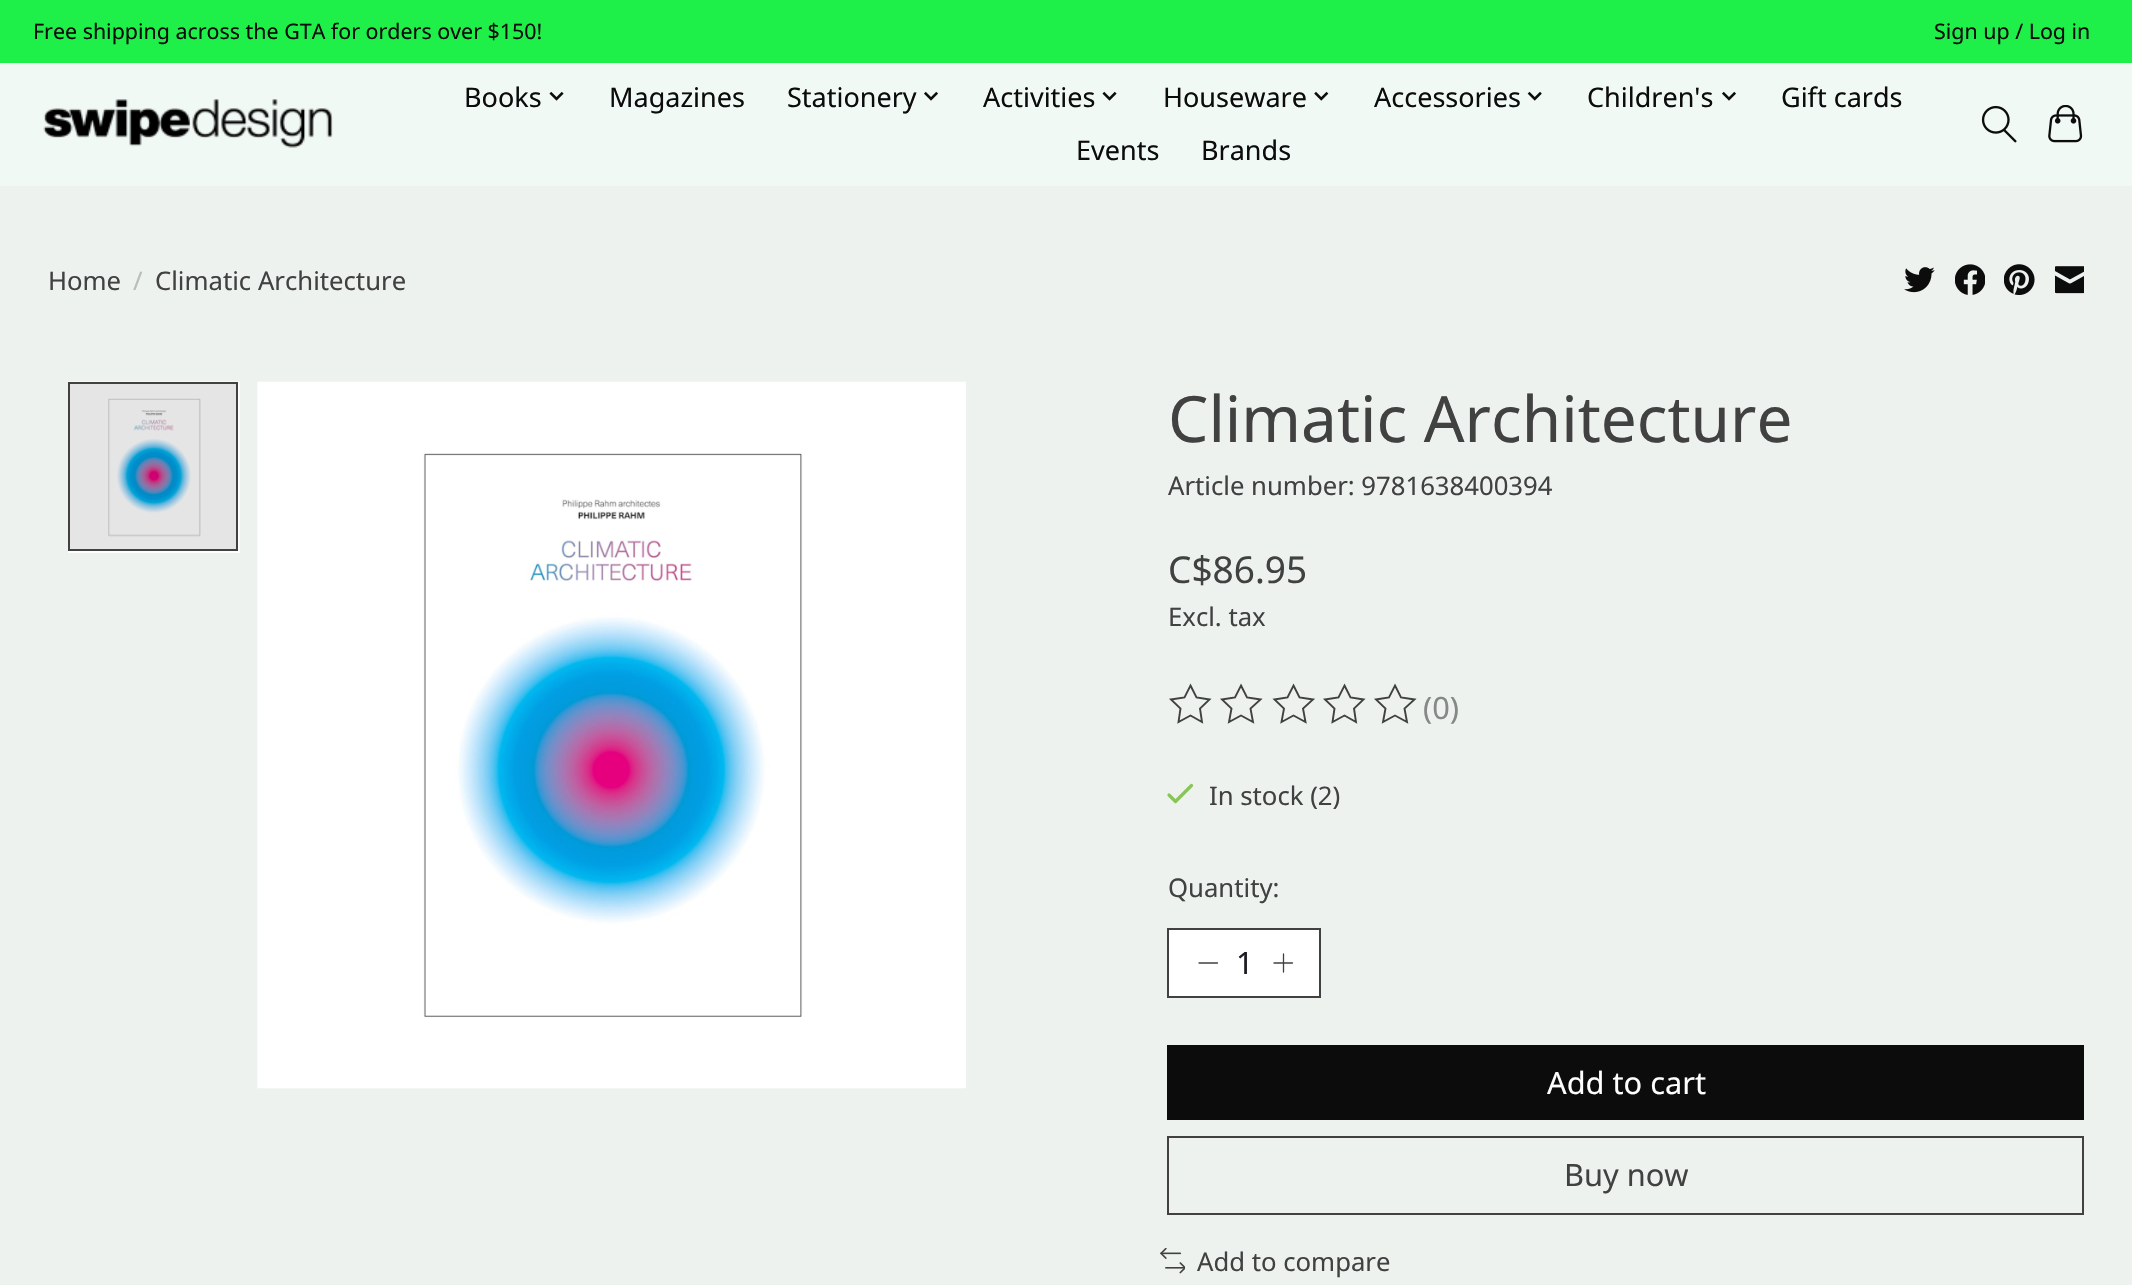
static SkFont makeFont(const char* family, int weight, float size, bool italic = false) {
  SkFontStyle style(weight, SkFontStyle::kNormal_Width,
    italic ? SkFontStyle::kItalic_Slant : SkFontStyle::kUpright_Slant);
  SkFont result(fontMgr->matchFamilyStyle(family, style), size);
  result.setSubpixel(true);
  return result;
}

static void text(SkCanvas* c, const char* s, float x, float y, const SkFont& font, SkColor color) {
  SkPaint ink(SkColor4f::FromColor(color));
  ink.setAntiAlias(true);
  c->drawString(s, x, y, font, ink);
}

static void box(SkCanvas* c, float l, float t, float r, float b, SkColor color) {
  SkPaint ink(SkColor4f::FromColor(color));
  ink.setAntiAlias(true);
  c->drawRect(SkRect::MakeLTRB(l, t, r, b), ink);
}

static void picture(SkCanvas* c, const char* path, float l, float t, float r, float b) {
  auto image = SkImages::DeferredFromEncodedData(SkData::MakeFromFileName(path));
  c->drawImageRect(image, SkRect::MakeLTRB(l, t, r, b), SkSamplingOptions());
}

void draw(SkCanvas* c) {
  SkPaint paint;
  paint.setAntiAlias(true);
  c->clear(0xffeef2ef);
  box(c, 0, 63, 2132, 186, 0xfff1f9f4);
  box(c, 0, 0, 2132, 63, 0xff1ef049);
  SkFont face1 = makeFont("Noto Sans", 400, 21.4f);
  text(c, "Free shipping across the GTA for orders over $150!", 33, 39, face1, 0xff0c0c0c);
  text(c, "Sign up / Log in", 1934, 39, face1, 0xff0c0c0c);
  picture(c, "img_01.png", 43, 99, 333, 148);
  SkFont face2 = makeFont("Noto Sans", 400, 27);
  text(c, "Books", 464, 107, face2, 0xff0c0c0c);
  picture(c, "img_02.png", 549, 91, 564, 101);
  text(c, "Magazines", 609, 107, face2, 0xff0c0c0c);
  text(c, "Stationery", 787, 107, face2, 0xff0c0c0c);
  picture(c, "img_03.png", 924, 91, 938, 101);
  text(c, "Activities", 983, 107, face2, 0xff0c0c0c);
  picture(c, "img_02.png", 1102, 91, 1117, 101);
  text(c, "Houseware", 1163, 107, face2, 0xff0c0c0c);
  picture(c, "img_04.png", 1314, 91, 1329, 101);
  text(c, "Accessories", 1374, 107, face2, 0xff0c0c0c);
  picture(c, "img_05.png", 1527, 91, 1542, 101);
  text(c, "Children's", 1587, 107, face2, 0xff0c0c0c);
  picture(c, "img_03.png", 1722, 91, 1736, 101);
  text(c, "Gift cards", 1781, 107, face2, 0xff0c0c0c);
  text(c, "Events", 1076, 160, face2, 0xff0c0c0c);
  text(c, "Brands", 1201, 160, face2, 0xff0c0c0c);
  picture(c, "img_06.png", 1981, 105, 2017, 143);
  picture(c, "img_07.png", 2048, 105, 2083, 143);
  SkFont face3 = makeFont("Noto Sans", 400, 25.7f);
  text(c, "Home", 48, 290, face3, 0xff414141);
  text(c, "/", 133, 290, face3, 0xffbabdbb);
  text(c, "Climatic Architecture", 155, 290, face3, 0xff414141);
  picture(c, "img_08.png", 1904, 267, 1935, 293);
  picture(c, "img_09.png", 1955, 264, 1985, 295);
  picture(c, "img_10.png", 2004, 264, 2035, 295);
  picture(c, "img_11.png", 2055, 266, 2084, 294);
  picture(c, "img_12.png", 68, 381, 240, 553);
  paint.setStyle(SkPaint::kStroke_Style);
  paint.setStrokeWidth(2);
  paint.setColor(0xff414141);
  c->drawRect(SkRect::MakeLTRB(69, 383, 237, 550), paint);
  picture(c, "img_13.png", 257, 381, 966, 1089);
  SkFont face4 = makeFont("Noto Sans", 400, 63.9f);
  text(c, "Climatic Architecture", 1168, 442, face4, 0xff414141);
  text(c, "Article number: 9781638400394", 1168, 495, face3, 0xff414141);
  SkFont face5 = makeFont("Noto Sans", 400, 37);
  text(c, "C$86.95", 1168, 583, face5, 0xff414141);
  text(c, "Excl. tax", 1168, 626, face3, 0xff414141);
  paint.setStrokeWidth(1.9f);
  c->drawPath(SkPathBuilder().moveTo(1190.5f, 685.5f).lineTo(1196.5f, 697.5f).lineTo(1209.5f, 699.5f).lineTo(1200, 708.5f).lineTo(1202, 722).lineTo(1190.5f, 715.5f).lineTo(1178.5f, 722).lineTo(1180.5f, 708.5f).lineTo(1171, 699.5f).lineTo(1184.5f, 697.5f).close().detach(), paint);
  c->drawPath(SkPathBuilder().moveTo(1241, 685.5f).lineTo(1247, 697.5f).lineTo(1260.5f, 699.5f).lineTo(1250.5f, 708.5f).lineTo(1253, 722).lineTo(1241, 715.5f).lineTo(1229, 722).lineTo(1231.5f, 708.5f).lineTo(1222, 699.5f).lineTo(1235, 697.5f).close().detach(), paint);
  c->drawPath(SkPathBuilder().moveTo(1293.5f, 685.5f).lineTo(1299.5f, 697.5f).lineTo(1313, 699.5f).lineTo(1303, 708.5f).lineTo(1305.5f, 722).lineTo(1293.5f, 715.5f).lineTo(1281.5f, 722).lineTo(1284, 708.5f).lineTo(1274.5f, 699.5f).lineTo(1287.5f, 697.5f).close().detach(), paint);
  c->drawPath(SkPathBuilder().moveTo(1344.5f, 685.5f).lineTo(1350.5f, 697.5f).lineTo(1363.5f, 699.5f).lineTo(1354, 708.5f).lineTo(1356, 722).lineTo(1344.5f, 715.5f).lineTo(1332.5f, 722).lineTo(1334.5f, 708.5f).lineTo(1325, 699.5f).lineTo(1338.5f, 697.5f).close().detach(), paint);
  c->drawPath(SkPathBuilder().moveTo(1395, 685.5f).lineTo(1401, 697.5f).lineTo(1414.5f, 699.5f).lineTo(1404.5f, 708.5f).lineTo(1407, 722).lineTo(1395, 715.5f).lineTo(1383, 722).lineTo(1385.5f, 708.5f).lineTo(1376, 699.5f).lineTo(1389, 697.5f).close().detach(), paint);
  SkFont face6 = makeFont("Noto Sans", 400, 30.75f);
  text(c, "(0)", 1423, 719, face6, 0xff868887);
  paint.setStrokeWidth(3.2f);
  paint.setStrokeCap(SkPaint::kRound_Cap);
  paint.setStrokeJoin(SkPaint::kRound_Join);
  paint.setColor(0xff88c559);
  c->drawPath(SkPathBuilder().moveTo(1169, 795).lineTo(1175.5f, 801.5f).lineTo(1191.5f, 785.5f).detach(), paint);
  text(c, "In stock (2)", 1209, 805, face3, 0xff414141);
  text(c, "Quantity:", 1168, 897, face3, 0xff414141);
  paint.setStyle(SkPaint::kFill_Style);
  paint.setColor(0xffffffff);
  c->drawRect(SkRect::MakeLTRB(1168, 929, 1320, 997), paint);
  paint.setStyle(SkPaint::kStroke_Style);
  paint.setStrokeWidth(2);
  paint.setStrokeCap(SkPaint::kButt_Cap);
  paint.setStrokeJoin(SkPaint::kMiter_Join);
  paint.setColor(0xff414141);
  c->drawRect(SkRect::MakeLTRB(1168, 929, 1320, 997), paint);
  paint.setStrokeWidth(1.3f);
  paint.setStrokeCap(SkPaint::kRound_Cap);
  paint.setStrokeJoin(SkPaint::kRound_Join);
  c->drawPath(SkPathBuilder().moveTo(1199, 963).lineTo(1217.5f, 963).detach(), paint);
  text(c, "1", 1236, 974, face6, 0xff1c1c21);
  c->drawPath(SkPathBuilder().moveTo(1283.5f, 954).lineTo(1283.5f, 972).moveTo(1274, 963).lineTo(1292.5f, 963).detach(), paint);
  box(c, 1167, 1045, 2084, 1120, 0xff0c0c0c);
  text(c, "Add to cart", 1547, 1094, face6, 0xffffffff);
  paint.setStrokeWidth(2);
  paint.setStrokeCap(SkPaint::kButt_Cap);
  paint.setStrokeJoin(SkPaint::kMiter_Join);
  c->drawRect(SkRect::MakeLTRB(1168, 1137, 2083, 1214), paint);
  text(c, "Buy now", 1564, 1186, face6, 0xff414141);
  picture(c, "img_14.png", 1160, 1248, 1185, 1274);
  text(c, "Add to compare", 1197, 1271, face3, 0xff414141);
}
